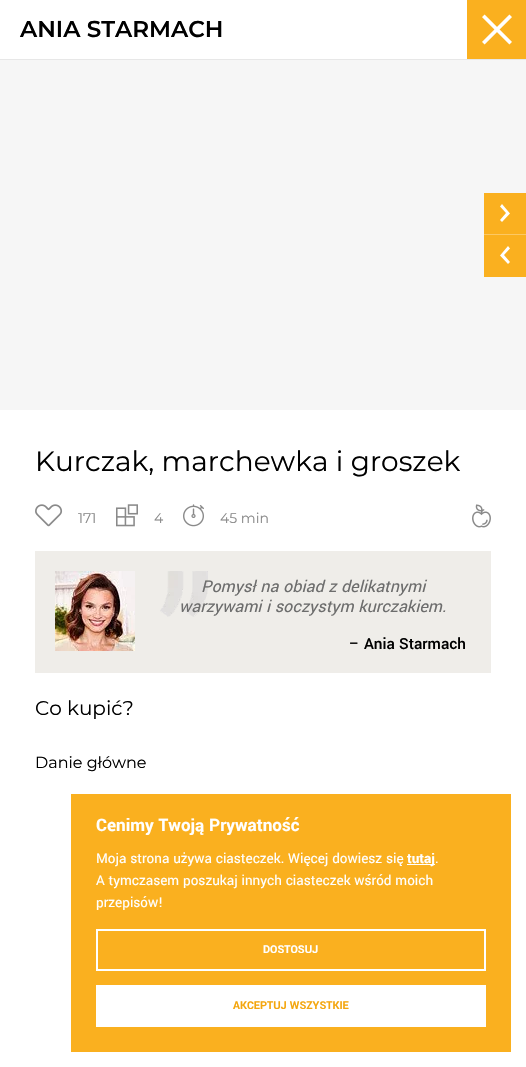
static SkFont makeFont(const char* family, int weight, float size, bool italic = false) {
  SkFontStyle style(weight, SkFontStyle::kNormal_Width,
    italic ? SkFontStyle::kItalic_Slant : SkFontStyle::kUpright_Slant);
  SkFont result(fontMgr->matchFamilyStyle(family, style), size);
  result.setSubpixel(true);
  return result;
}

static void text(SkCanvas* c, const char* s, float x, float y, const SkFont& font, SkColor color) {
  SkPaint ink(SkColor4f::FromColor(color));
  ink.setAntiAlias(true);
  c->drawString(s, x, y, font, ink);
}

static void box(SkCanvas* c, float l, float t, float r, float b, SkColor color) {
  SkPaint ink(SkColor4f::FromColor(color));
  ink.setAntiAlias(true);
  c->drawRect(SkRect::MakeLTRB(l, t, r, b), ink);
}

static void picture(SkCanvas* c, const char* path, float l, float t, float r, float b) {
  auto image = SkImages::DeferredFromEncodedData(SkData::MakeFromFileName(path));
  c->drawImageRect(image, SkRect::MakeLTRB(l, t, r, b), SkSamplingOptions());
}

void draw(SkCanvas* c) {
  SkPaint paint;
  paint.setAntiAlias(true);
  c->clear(0xffffffff);
  box(c, 0, 59, 526, 60, 0xffe7e7e7);
  SkFont face1 = makeFont("Montserrat", 600, 23);
  text(c, "ANIA STARMACH", 20, 37, face1, 0xff000000);
  box(c, 467, 0, 526, 59, 0xfffab01f);
  picture(c, "img_01.png", 482, 14, 512, 45);
  box(c, 0, 60, 526, 410, 0xfff6f6f6);
  box(c, 484, 193, 526, 234, 0xfffab01f);
  box(c, 484, 234, 526, 235, 0xfffcc863);
  paint.setColor(0xffffffff);
  c->drawPath(SkPathBuilder().moveTo(510, 213.5f).lineTo(502, 222).lineTo(500, 220).lineTo(506, 213).lineTo(500, 206.5f).lineTo(502, 204).close().detach(), paint);
  box(c, 484, 235, 526, 277, 0xfffab01f);
  c->drawPath(SkPathBuilder().moveTo(510, 262).lineTo(508, 264).lineTo(500, 255.5f).lineTo(508, 246).lineTo(510, 248.5f).lineTo(504, 255).close().detach(), paint);
  SkFont face2 = makeFont("Montserrat", 400, 28);
  text(c, "Kurczak, marchewka i groszek", 35, 471, face2, 0xff000000);
  picture(c, "img_02.png", 35, 504, 63, 527);
  SkFont face3 = makeFont("Montserrat", 400, 14);
  text(c, "171", 78, 523, face3, 0xff8a8a8a);
  picture(c, "img_03.png", 116, 504, 138, 527);
  text(c, "4", 154, 523, face3, 0xff8a8a8a);
  picture(c, "img_04.png", 183, 504, 204, 527);
  text(c, "45 min", 220, 523, face3, 0xff8a8a8a);
  picture(c, "img_05.png", 472, 504, 491, 528);
  box(c, 35, 551, 491, 673, 0xffefede9);
  picture(c, "img_06.png", 55, 571, 135, 651);
  picture(c, "img_07.png", 160, 571, 208, 617);
  SkFont face4 = makeFont("Yantramanav", 400, 18, true);
  text(c, "Pomysł na obiad z delikatnymi", 201, 592, face4, 0xff6d6d6d);
  text(c, "warzywami i soczystym kurczakiem.", 179, 612, face4, 0xff6d6d6d);
  SkFont face5 = makeFont("Yantramanav", 500, 17);
  text(c, "– Ania Starmach", 349, 649, face5, 0xff000000);
  SkFont face6 = makeFont("Montserrat", 400, 20);
  text(c, "Co kupić?", 35, 715, face6, 0xff000000);
  SkFont face7 = makeFont("Montserrat", 400, 16);
  text(c, "Danie główne", 35, 768, face7, 0xff000000);
  box(c, 71, 794, 511, 1052, 0xfffab01f);
  SkFont face8 = makeFont("Yantramanav", 700, 19);
  text(c, "Cenimy Twoją Prywatność", 96, 831, face8, 0xffffffff);
  SkFont face9 = makeFont("Yantramanav", 400, 15);
  text(c, "Moja strona używa ciasteczek. Więcej dowiesz się", 96, 863, face9, 0xffffffff);
  box(c, 407, 864, 435, 865, 0xffffffff);
  SkFont face10 = makeFont("Yantramanav", 700, 15);
  text(c, "tutaj", 407, 863, face10, 0xffffffff);
  text(c, ".", 435, 863, face9, 0xffffffff);
  text(c, "A tymczasem poszukaj innych ciasteczek wśród moich", 96, 885, face9, 0xffffffff);
  text(c, "przepisów!", 96, 907, face9, 0xffffffff);
  paint.setStyle(SkPaint::kStroke_Style);
  paint.setStrokeWidth(2);
  c->drawRect(SkRect::MakeLTRB(97, 930, 485, 970), paint);
  SkFont face11 = makeFont("Yantramanav", 700, 12);
  text(c, "DOSTOSUJ", 263, 953, face11, 0xffffffff);
  box(c, 96, 985, 486, 1027, 0xffffffff);
  text(c, "AKCEPTUJ WSZYSTKIE", 233, 1009, face11, 0xfff4a60e);
}
